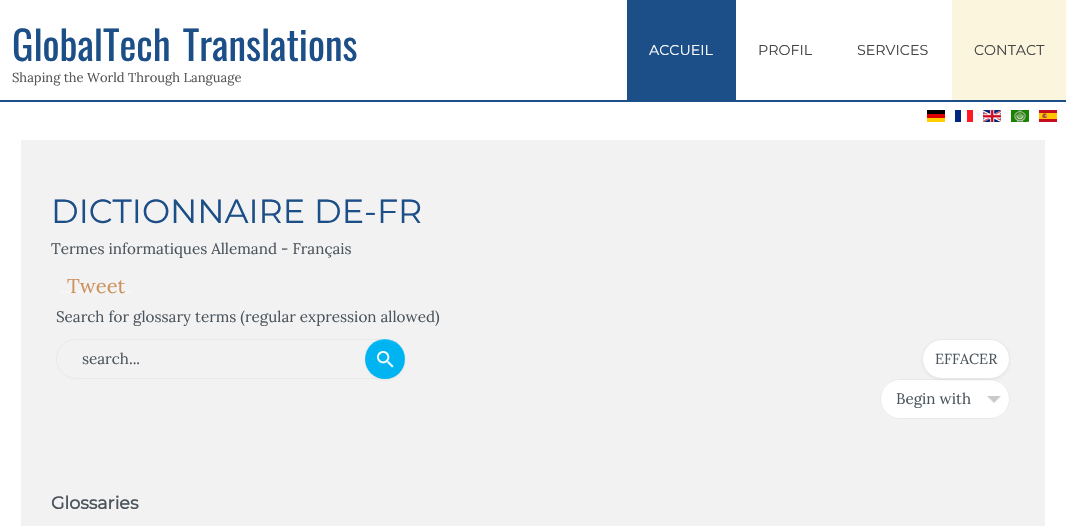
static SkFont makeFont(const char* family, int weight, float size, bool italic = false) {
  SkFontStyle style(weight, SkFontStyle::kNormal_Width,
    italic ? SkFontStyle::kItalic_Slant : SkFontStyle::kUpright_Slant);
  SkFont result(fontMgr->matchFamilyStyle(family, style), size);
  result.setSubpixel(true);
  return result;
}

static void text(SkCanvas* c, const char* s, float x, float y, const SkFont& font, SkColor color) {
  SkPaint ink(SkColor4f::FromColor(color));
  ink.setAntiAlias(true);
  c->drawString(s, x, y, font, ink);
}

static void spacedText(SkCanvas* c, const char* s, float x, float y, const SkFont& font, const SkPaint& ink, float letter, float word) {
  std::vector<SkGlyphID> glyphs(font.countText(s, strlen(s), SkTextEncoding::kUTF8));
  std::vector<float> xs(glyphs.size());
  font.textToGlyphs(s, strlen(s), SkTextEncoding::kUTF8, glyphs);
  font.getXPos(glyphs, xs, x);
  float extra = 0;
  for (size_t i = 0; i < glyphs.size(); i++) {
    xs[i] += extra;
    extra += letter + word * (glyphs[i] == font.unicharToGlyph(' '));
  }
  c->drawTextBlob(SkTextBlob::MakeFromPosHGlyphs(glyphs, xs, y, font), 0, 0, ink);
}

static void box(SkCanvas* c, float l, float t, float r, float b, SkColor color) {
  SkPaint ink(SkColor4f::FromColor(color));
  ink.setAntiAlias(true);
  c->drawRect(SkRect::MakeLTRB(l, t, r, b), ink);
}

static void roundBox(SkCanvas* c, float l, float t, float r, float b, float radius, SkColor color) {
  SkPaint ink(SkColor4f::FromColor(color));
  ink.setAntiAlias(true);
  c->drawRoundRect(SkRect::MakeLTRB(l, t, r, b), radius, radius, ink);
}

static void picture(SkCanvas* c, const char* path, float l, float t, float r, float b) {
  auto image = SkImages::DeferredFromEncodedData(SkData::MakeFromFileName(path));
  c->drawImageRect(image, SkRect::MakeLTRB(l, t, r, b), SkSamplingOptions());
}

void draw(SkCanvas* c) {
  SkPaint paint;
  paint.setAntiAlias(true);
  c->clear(0xffffffff);
  box(c, 0, 100, 1066, 102, 0xff1c4e88);
  SkFont face1 = makeFont("Oswald", 400, 40);
  paint.setColor(0xff1c4e88);
  spacedText(c, "GlobalTech Translations", 12, 61, face1, paint, 0, 3);
  SkFont face2 = makeFont("Lora", 400, 13);
  text(c, "Shaping the World Through Language", 12, 82, face2, 0xff555555);
  box(c, 627, 0, 736, 100, 0xff1c4e88);
  SkFont face3 = makeFont("Montserrat", 100, 14.25f);
  text(c, "ACCUEIL", 649, 55, face3, 0xffffffff);
  text(c, "PROFIL", 758, 55, face3, 0xff444444);
  text(c, "SERVICES", 857, 55, face3, 0xff444444);
  box(c, 952, 0, 1066, 100, 0xfffaf5dc);
  text(c, "CONTACT", 974, 55, face3, 0xff444444);
  picture(c, "img_01.png", 927, 110, 945, 122);
  picture(c, "img_02.png", 955, 110, 973, 122);
  picture(c, "img_03.png", 983, 110, 1001, 122);
  picture(c, "img_04.png", 1011, 110, 1029, 122);
  picture(c, "img_05.png", 1039, 110, 1057, 122);
  box(c, 21, 140, 1045, 526, 0xfff2f2f2);
  SkFont face4 = makeFont("Montserrat", 100, 33.5f);
  text(c, "DICTIONNAIRE DE-FR", 51, 223, face4, 0xff1c4e88);
  SkFont face5 = makeFont("Lora", 400, 15.2f);
  text(c, "Termes informatiques Allemand - Français", 51, 254, face5, 0xff4c555d);
  box(c, 61, 291, 131, 293, 0xfff5f5f5);
  SkFont face6 = makeFont("Lora", 400, 20);
  text(c, "Tweet", 67, 293, face6, 0xffcc935e);
  text(c, "Search for glossary terms (regular expression allowed)", 56, 322, face5, 0xff4c555d);
  paint.setStyle(SkPaint::kStroke_Style);
  paint.setStrokeWidth(1);
  paint.setColor(0xffe9e9e9);
  c->drawRoundRect(SkRect::MakeLTRB(56.5f, 339.5f, 404.5f, 378.5f), 19.5f, 19.5f, paint);
  text(c, "search...", 82, 364, face5, 0xff4c555d);
  paint.setStyle(SkPaint::kFill_Style);
  paint.setColor(0x0d000000);
  paint.setMaskFilter(SkMaskFilter::MakeBlur(kNormal_SkBlurStyle, 1));
  c->drawRoundRect(SkRect::MakeLTRB(365, 340, 405, 380), 20, 20, paint);
  paint.setMaskFilter(nullptr);
  paint.setColor(0xff00b4f2);
  c->drawCircle(385, 359, 20, paint);
  picture(c, "img_06.png", 377, 351, 394, 368);
  paint.setColor(0x33ffffff);
  c->drawPath(SkPathBuilder().moveTo(385, 340).cubicTo(401, 340, 407, 355, 404, 366).cubicTo(406, 362, 405, 356, 403, 351).cubicTo(393, 327, 357, 343, 366, 366).cubicTo(363, 355, 369, 340, 385, 340).close().detach(), paint);
  roundBox(c, 880, 379, 1010, 419, 20, 0xffffffff);
  picture(c, "img_07.png", 987, 396, 1001, 403);
  paint.setStyle(SkPaint::kStroke_Style);
  paint.setColor(0xffe9e9e9);
  c->drawRoundRect(SkRect::MakeLTRB(880.5f, 379.5f, 1009.5f, 418.5f), 19.5f, 19.5f, paint);
  paint.setStyle(SkPaint::kFill_Style);
  paint.setColor(0x0d000000);
  paint.setMaskFilter(SkMaskFilter::MakeBlur(kNormal_SkBlurStyle, 1));
  c->drawRoundRect(SkRect::MakeLTRB(922, 340, 1010, 380), 20, 20, paint);
  paint.setMaskFilter(nullptr);
  paint.setColor(0xffffffff);
  c->drawRoundRect(SkRect::MakeLTRB(922.5f, 339.5f, 1009.5f, 378.5f), 19.5f, 19.5f, paint);
  paint.setStyle(SkPaint::kStroke_Style);
  paint.setColor(0xffe9e9e9);
  c->drawRoundRect(SkRect::MakeLTRB(922.5f, 339.5f, 1009.5f, 378.5f), 19.5f, 19.5f, paint);
  SkFont face7 = makeFont("Lora", 400, 14.5f);
  text(c, "EFFACER", 935, 364, face7, 0xff4c555d);
  text(c, "Begin with", 896, 404, face5, 0xff4c555d);
  SkFont face8 = makeFont("Montserrat", 700, 17.5f);
  text(c, "Glossaries", 51, 509, face8, 0xff4c555d);
}
